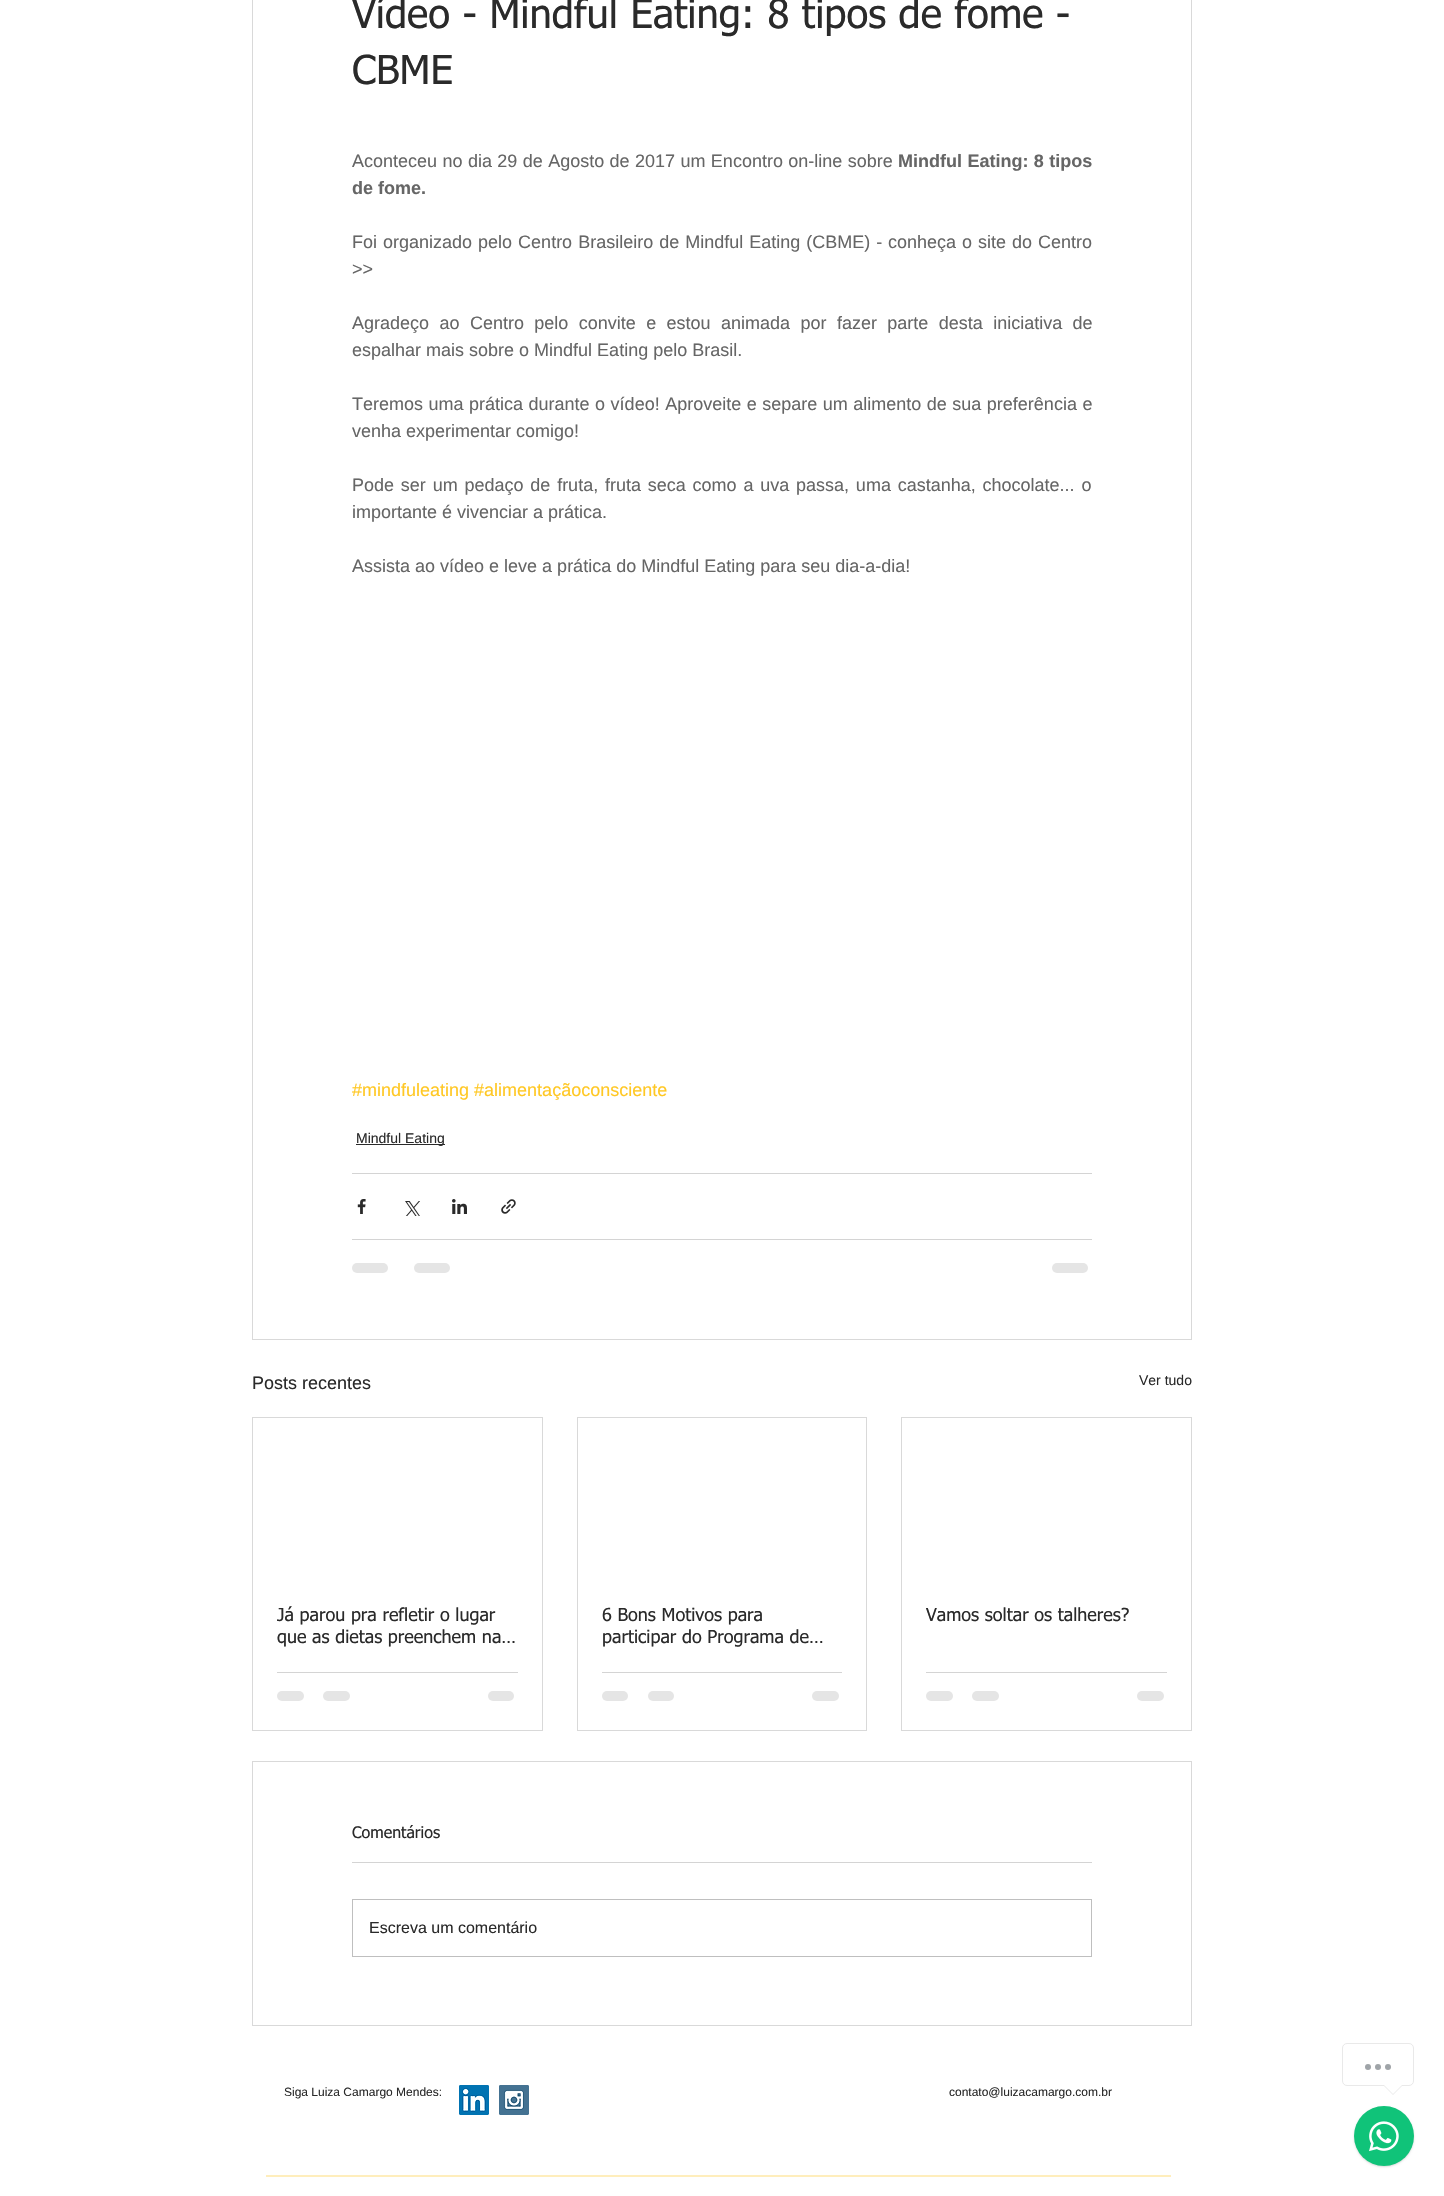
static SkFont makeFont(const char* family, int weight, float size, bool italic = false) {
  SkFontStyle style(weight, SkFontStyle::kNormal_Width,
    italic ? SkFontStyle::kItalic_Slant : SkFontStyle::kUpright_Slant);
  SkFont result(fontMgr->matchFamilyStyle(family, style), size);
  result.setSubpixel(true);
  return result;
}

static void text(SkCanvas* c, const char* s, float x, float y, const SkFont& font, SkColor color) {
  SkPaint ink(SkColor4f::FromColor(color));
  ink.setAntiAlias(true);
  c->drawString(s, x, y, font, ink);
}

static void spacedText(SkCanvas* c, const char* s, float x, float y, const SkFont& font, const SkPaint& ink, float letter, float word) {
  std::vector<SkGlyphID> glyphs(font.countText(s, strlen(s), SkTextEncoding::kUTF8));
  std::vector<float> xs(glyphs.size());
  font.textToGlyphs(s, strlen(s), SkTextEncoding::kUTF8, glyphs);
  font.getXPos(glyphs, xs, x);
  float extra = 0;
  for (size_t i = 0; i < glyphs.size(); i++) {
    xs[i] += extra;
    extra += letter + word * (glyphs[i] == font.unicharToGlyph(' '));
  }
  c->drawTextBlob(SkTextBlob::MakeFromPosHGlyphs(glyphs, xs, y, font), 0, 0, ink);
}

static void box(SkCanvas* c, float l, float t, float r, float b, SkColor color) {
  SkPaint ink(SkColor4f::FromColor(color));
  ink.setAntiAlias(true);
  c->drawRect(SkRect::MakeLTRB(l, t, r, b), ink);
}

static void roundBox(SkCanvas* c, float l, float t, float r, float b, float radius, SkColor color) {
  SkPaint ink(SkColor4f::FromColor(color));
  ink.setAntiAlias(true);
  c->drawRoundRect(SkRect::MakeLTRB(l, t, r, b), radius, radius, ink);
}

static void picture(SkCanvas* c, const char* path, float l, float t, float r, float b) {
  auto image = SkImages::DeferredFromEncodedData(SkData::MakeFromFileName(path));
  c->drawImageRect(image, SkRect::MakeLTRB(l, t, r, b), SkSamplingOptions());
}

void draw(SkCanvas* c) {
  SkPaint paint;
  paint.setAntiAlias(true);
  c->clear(0xffffffff);
  paint.setStyle(SkPaint::kStroke_Style);
  paint.setStrokeWidth(1);
  paint.setColor(0xffd9d9d9);
  c->drawRect(SkRect::MakeLTRB(252.5f, -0.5f, 1191.5f, 1339.5f), paint);
  SkFont face1 = makeFont("tahoma", 400, 40);
  text(c, "Vídeo - Mindful Eating: 8 tipos de fome -", 352, 28, face1, 0xff2a2a2a);
  text(c, "CBME", 352, 84, face1, 0xff2a2a2a);
  SkFont face2 = makeFont("Liberation Sans", 400, 18);
  paint.setStyle(SkPaint::kFill_Style);
  paint.setColor(0xff666666);
  spacedText(c, "Aconteceu no dia 29 de Agosto de 2017 um Encontro on-line sobre", 352, 167, face2, paint, 0, 0.4f);
  SkFont face3 = makeFont("Liberation Sans", 700, 18);
  spacedText(c, "Mindful Eating: 8 tipos", 898, 167, face3, paint, 0, 0.4f);
  text(c, "de fome.", 352, 194, face3, 0xff666666);
  spacedText(c, "Foi organizado pelo Centro Brasileiro de Mindful Eating (CBME) -", 352, 248, face2, paint, 0, 1);
  spacedText(c, "conheça o site do Centro", 888, 248, face2, paint, 0, 1);
  text(c, ">>", 352, 275, face2, 0xff666666);
  spacedText(c, "Agradeço ao Centro pelo convite e estou animada por fazer parte desta iniciativa de", 352, 329, face2, paint, 0, 5.4f);
  text(c, "espalhar mais sobre o Mindful Eating pelo Brasil.", 352, 356, face2, 0xff666666);
  spacedText(c, "Teremos uma prática durante o vídeo! Aproveite e separe um alimento de sua preferência e", 352, 410, face2, paint, 0, 0.5f);
  text(c, "venha experimentar comigo!", 352, 437, face2, 0xff666666);
  spacedText(c, "Pode ser um pedaço de fruta, fruta seca como a uva passa, uma castanha, chocolate... o", 352, 491, face2, paint, 0, 1.8f);
  text(c, "importante é vivenciar a prática.", 352, 518, face2, 0xff666666);
  text(c, "Assista ao vídeo e leve a prática do Mindful Eating para seu dia-a-dia!", 352, 572, face2, 0xff666666);
  text(c, "#mindfuleating #alimentaçãoconsciente", 352, 1096, face2, 0xffffc824);
  box(c, 356, 1144, 445, 1145, 0xff2a2a2a);
  SkFont face4 = makeFont("Liberation Sans", 400, 14);
  text(c, "Mindful Eating", 356, 1143, face4, 0xff2a2a2a);
  box(c, 352, 1173, 1092, 1174, 0xffd4d4d4);
  picture(c, "img_01.png", 357, 1199, 366, 1214);
  picture(c, "img_02.png", 405, 1201, 420, 1216);
  picture(c, "img_03.png", 452, 1199, 467, 1214);
  picture(c, "img_04.png", 501, 1199, 516, 1214);
  box(c, 352, 1239, 1092, 1240, 0xffd4d4d4);
  roundBox(c, 352, 1263, 388, 1273, 5, 0xffe5e5e5);
  roundBox(c, 414, 1263, 450, 1273, 5, 0xffe5e5e5);
  roundBox(c, 1052, 1263, 1088, 1273, 5, 0xffe5e5e5);
  text(c, "Posts recentes", 252, 1389, face2, 0xff2a2a2a);
  text(c, "Ver tudo", 1139, 1385, face4, 0xff2a2a2a);
  paint.setStyle(SkPaint::kStroke_Style);
  paint.setColor(0xffd9d9d9);
  c->drawRect(SkRect::MakeLTRB(252.5f, 1417.5f, 542.5f, 1730.5f), paint);
  SkFont face5 = makeFont("tahoma", 400, 18);
  text(c, "Já parou pra refletir o lugar", 277, 1621, face5, 0xff2a2a2a);
  text(c, "que as dietas preenchem na…", 277, 1643, face5, 0xff2a2a2a);
  box(c, 277, 1672, 518, 1673, 0xffd4d4d4);
  roundBox(c, 277, 1691, 304, 1701, 5, 0xffe5e5e5);
  roundBox(c, 323, 1691, 350, 1701, 5, 0xffe5e5e5);
  roundBox(c, 488, 1691, 514, 1701, 5, 0xffe5e5e5);
  c->drawRect(SkRect::MakeLTRB(577.5f, 1417.5f, 866.5f, 1730.5f), paint);
  text(c, "6 Bons Motivos para", 602, 1621, face5, 0xff2a2a2a);
  text(c, "participar do Programa de…", 602, 1643, face5, 0xff2a2a2a);
  box(c, 602, 1672, 842, 1673, 0xffd4d4d4);
  roundBox(c, 602, 1691, 628, 1701, 5, 0xffe5e5e5);
  roundBox(c, 648, 1691, 674, 1701, 5, 0xffe5e5e5);
  roundBox(c, 812, 1691, 839, 1701, 5, 0xffe5e5e5);
  c->drawRect(SkRect::MakeLTRB(901.5f, 1417.5f, 1191.5f, 1730.5f), paint);
  text(c, "Vamos soltar os talheres?", 926, 1621, face5, 0xff2a2a2a);
  box(c, 926, 1672, 1167, 1673, 0xffd4d4d4);
  roundBox(c, 926, 1691, 953, 1701, 5, 0xffe5e5e5);
  roundBox(c, 972, 1691, 999, 1701, 5, 0xffe5e5e5);
  roundBox(c, 1137, 1691, 1164, 1701, 5, 0xffe5e5e5);
  c->drawRect(SkRect::MakeLTRB(252.5f, 1761.5f, 1191.5f, 2025.5f), paint);
  SkFont face6 = makeFont("tahoma", 400, 16);
  text(c, "Comentários", 352, 1838, face6, 0xff2a2a2a);
  box(c, 352, 1862, 1092, 1863, 0xffd4d4d4);
  paint.setColor(0xffbfbfbf);
  c->drawRect(SkRect::MakeLTRB(352.5f, 1899.5f, 1091.5f, 1956.5f), paint);
  SkFont face7 = makeFont("Liberation Sans", 400, 16);
  text(c, "Escreva um comentário", 369, 1933, face7, 0xff2a2a2a);
  SkFont face8 = makeFont("Liberation Sans", 400, 12);
  text(c, "Siga Luiza Camargo Mendes:", 284, 2096, face8, 0xff2a2a2a);
  picture(c, "img_05.png", 459, 2085, 489, 2115);
  picture(c, "img_06.png", 499, 2085, 529, 2115);
  text(c, "contato@luizacamargo.com.br", 949, 2096, face8, 0xff2a2a2a);
  box(c, 266, 2175, 1171, 2177, 0xffffeebc);
  paint.setColor(0xffe9e9e9);
  c->drawRoundRect(SkRect::MakeLTRB(1342.5f, 2043.5f, 1413.5f, 2085.5f), 4.5f, 4.5f, paint);
  paint.setStyle(SkPaint::kFill_Style);
  paint.setColor(0xff9fa4a8);
  c->drawCircle(1368, 2067, 3, paint);
  c->drawCircle(1378, 2067, 3, paint);
  c->drawCircle(1388, 2067, 3, paint);
  paint.setColor(0xffe9e9e9);
  c->drawPath(SkPathBuilder().moveTo(1383, 2085).lineTo(1403, 2085).lineTo(1393, 2095).close().detach(), paint);
  paint.setColor(0xffffffff);
  c->drawPath(SkPathBuilder().moveTo(1384, 2085).lineTo(1402, 2085).lineTo(1393, 2094).close().detach(), paint);
  paint.setColor(0x26000000);
  paint.setMaskFilter(SkMaskFilter::MakeBlur(kNormal_SkBlurStyle, 1));
  c->drawRoundRect(SkRect::MakeLTRB(1354, 2107, 1414, 2167), 30, 30, paint);
  paint.setMaskFilter(nullptr);
  paint.setColor(0xff10c379);
  c->drawCircle(1384, 2136, 30, paint);
  picture(c, "img_07.png", 1369, 2121, 1399, 2152);
}
